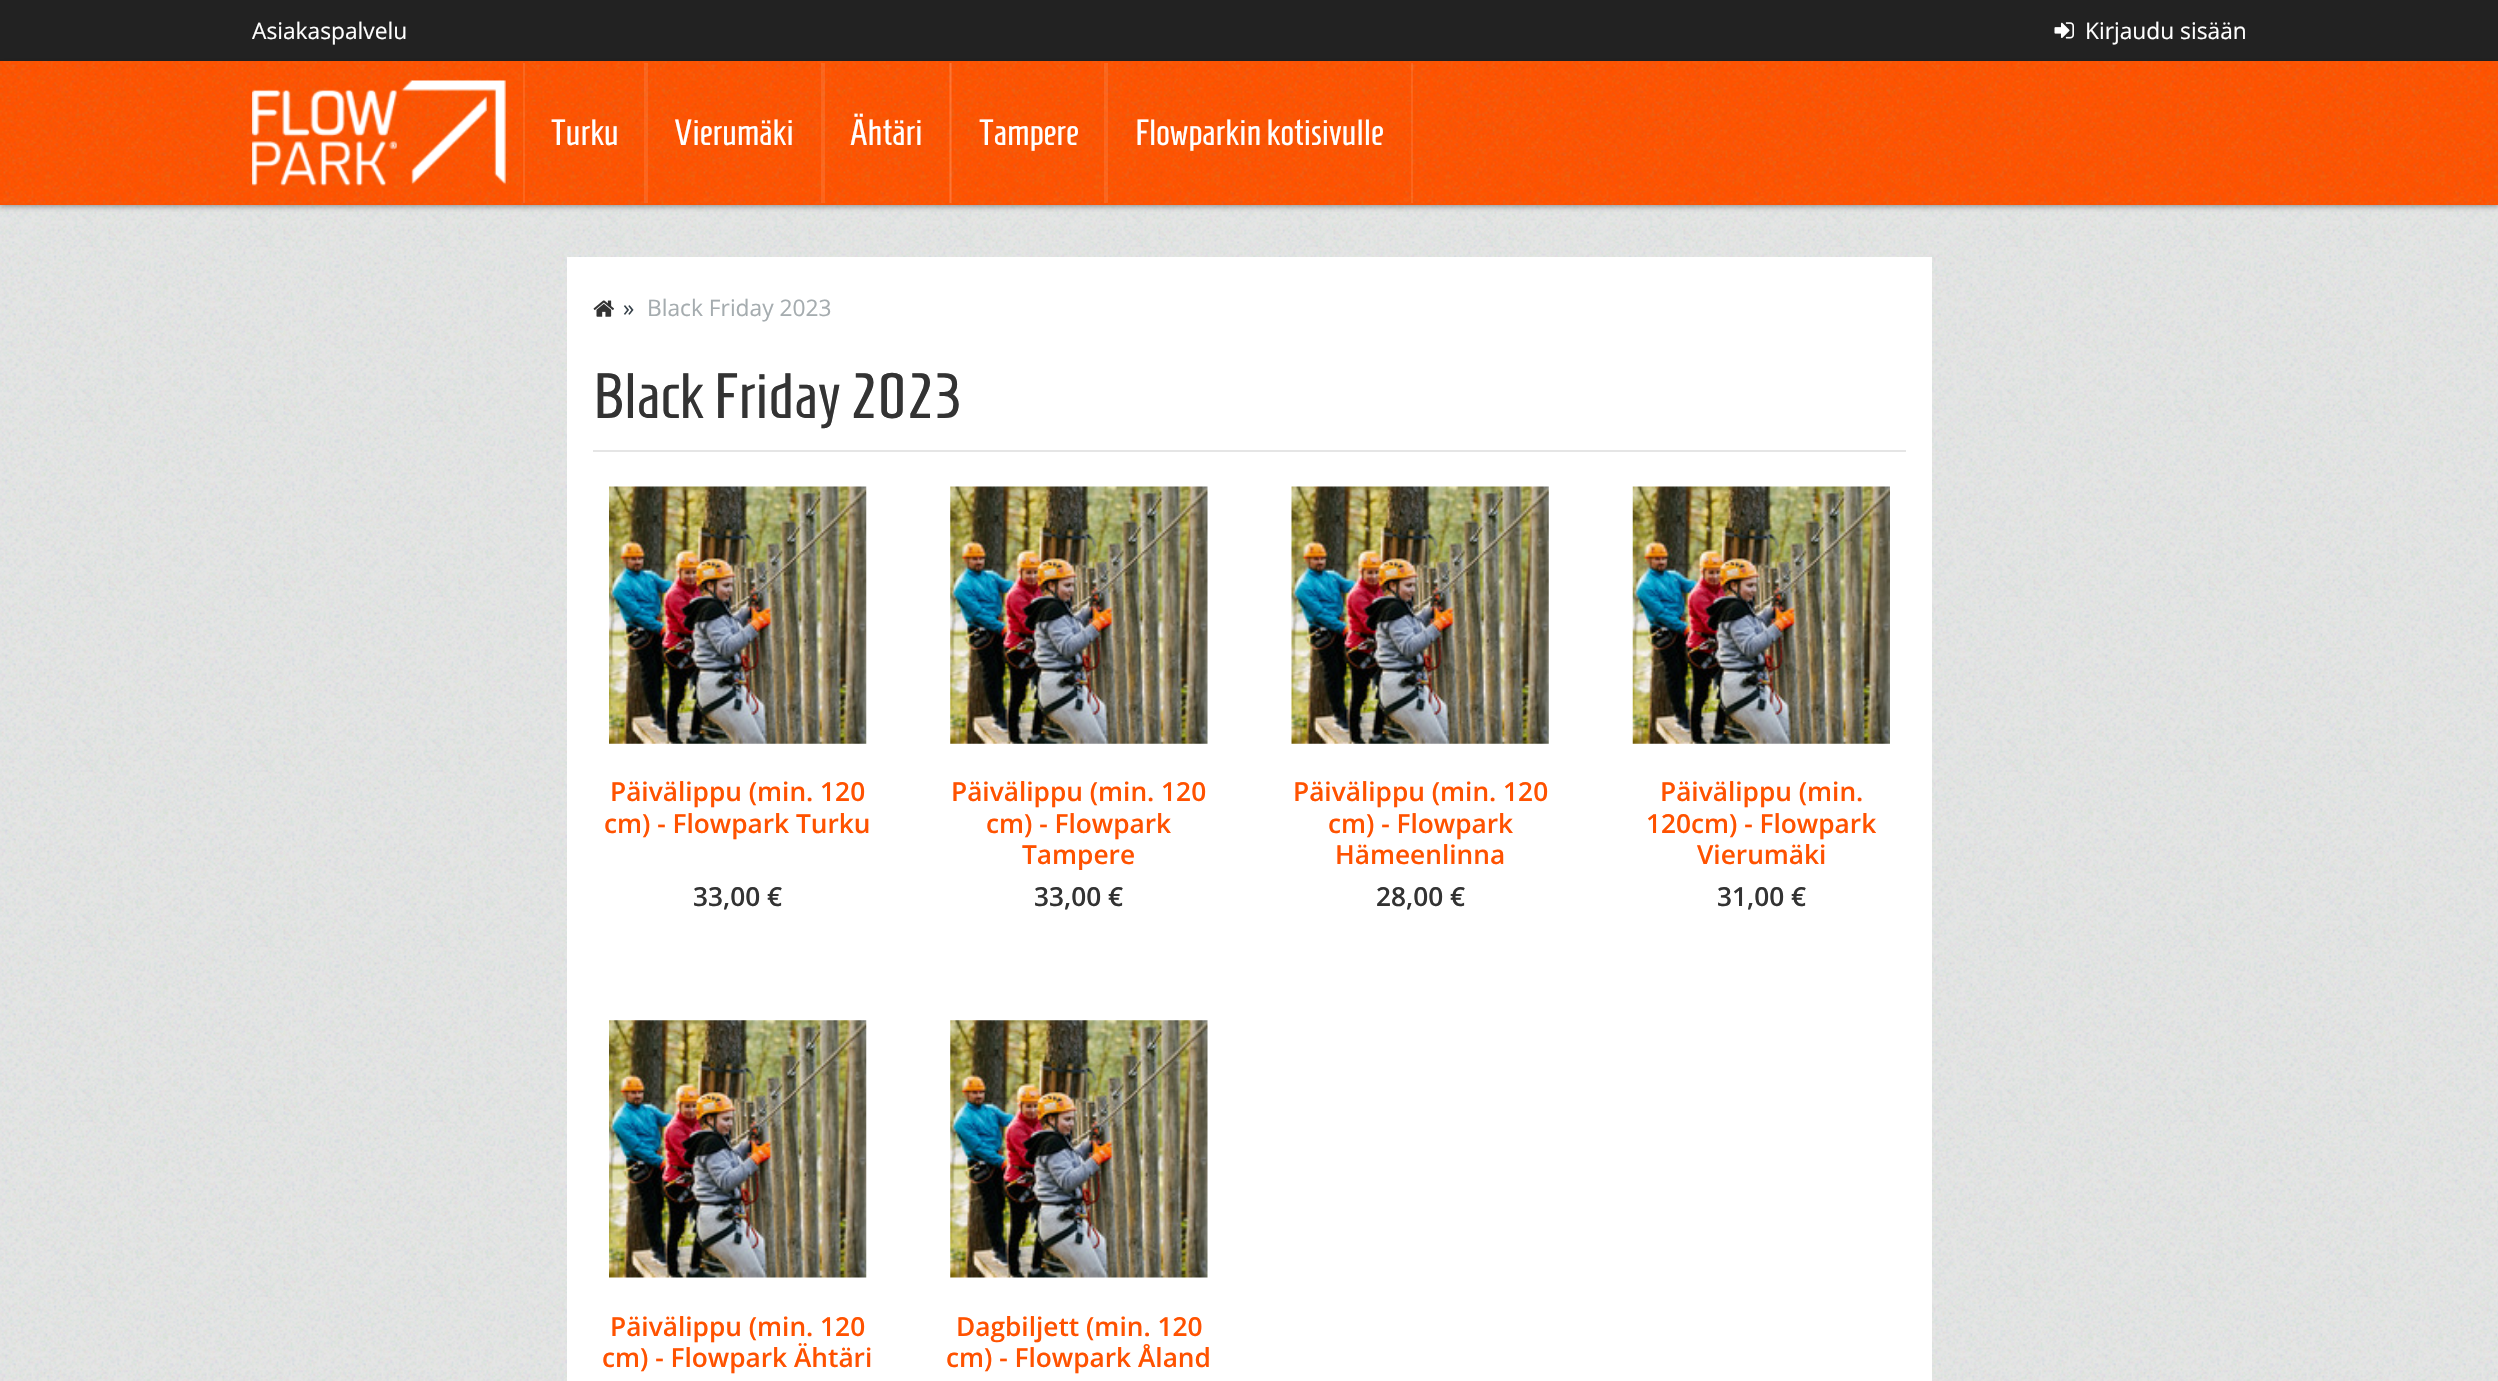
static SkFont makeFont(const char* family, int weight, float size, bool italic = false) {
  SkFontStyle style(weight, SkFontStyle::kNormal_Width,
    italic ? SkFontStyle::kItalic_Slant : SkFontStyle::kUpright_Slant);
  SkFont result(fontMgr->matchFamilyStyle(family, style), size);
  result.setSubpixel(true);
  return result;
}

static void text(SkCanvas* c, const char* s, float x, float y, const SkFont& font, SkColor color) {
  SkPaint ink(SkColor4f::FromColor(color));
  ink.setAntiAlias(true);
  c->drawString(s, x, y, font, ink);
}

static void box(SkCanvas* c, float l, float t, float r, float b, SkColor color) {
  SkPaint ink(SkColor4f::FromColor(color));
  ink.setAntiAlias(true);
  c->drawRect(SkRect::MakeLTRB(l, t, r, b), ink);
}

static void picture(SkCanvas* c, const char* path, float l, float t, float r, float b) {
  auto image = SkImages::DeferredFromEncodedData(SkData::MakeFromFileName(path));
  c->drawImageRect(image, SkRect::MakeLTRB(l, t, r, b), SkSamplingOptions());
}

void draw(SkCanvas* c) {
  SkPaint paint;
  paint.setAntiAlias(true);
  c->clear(0xffe5e5e5);
  picture(c, "img_01.png", 0, 205, 2498, 1381);
  box(c, 0, 0, 2498, 61, 0xff222222);
  SkFont face1 = makeFont("Open Sans", 400, 22.75f);
  text(c, "Asiakaspalvelu", 252, 39, face1, 0xffffffff);
  picture(c, "img_02.png", 2054, 22, 2074, 39);
  text(c, "Kirjaudu sisään", 2085, 39, face1, 0xffffffff);
  paint.setColor(0x4d000000);
  paint.setMaskFilter(SkMaskFilter::MakeBlur(kNormal_SkBlurStyle, 2.5f));
  c->drawRect(SkRect::MakeLTRB(0, 63, 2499, 207), paint);
  paint.setMaskFilter(nullptr);
  box(c, 0, 61, 2498, 205, 0xffff5200);
  picture(c, "img_03.png", 0, 61, 2498, 205);
  picture(c, "img_04.png", 252, 80, 506, 186);
  box(c, 644, 63, 646, 203, 0x1affffff);
  box(c, 523, 63, 525, 203, 0x1affffff);
  SkFont face2 = makeFont("Homenaje", 400, 36.25f);
  text(c, "Turku", 551, 145, face2, 0xffffffff);
  box(c, 821, 63, 823, 203, 0x1affffff);
  box(c, 646, 63, 648, 203, 0x1affffff);
  text(c, "Vierumäki", 674, 145, face2, 0xffffffff);
  box(c, 949, 63, 951, 203, 0x1affffff);
  box(c, 823, 63, 825, 203, 0x1affffff);
  text(c, "Ähtäri", 850, 145, face2, 0xffffffff);
  box(c, 1104, 63, 1106, 203, 0x1affffff);
  box(c, 950, 63, 952, 203, 0x1affffff);
  text(c, "Tampere", 979, 145, face2, 0xffffffff);
  box(c, 1411, 63, 1413, 203, 0x1affffff);
  box(c, 1106, 63, 1108, 203, 0x1affffff);
  text(c, "Flowparkin kotisivulle", 1135, 145, face2, 0xffffffff);
  box(c, 567, 257, 1932, 1381, 0xffffffff);
  picture(c, "img_05.png", 593, 300, 614, 317);
  text(c, "»", 623, 316, face1, 0xff37424a);
  text(c, "Black Friday 2023", 647, 316, face1, 0xffa5acaf);
  box(c, 593, 450, 1906, 452, 0xffe5e5e5);
  SkFont face3 = makeFont("Homenaje", 400, 64);
  text(c, "Black Friday 2023", 593, 418, face3, 0xff333333);
  picture(c, "img_06.png", 609, 486, 867, 744);
  SkFont face4 = makeFont("Open Sans", 600, 26.25f);
  text(c, "Päivälippu (min. 120", 610, 801, face4, 0xffff5200);
  text(c, "cm) - Flowpark Turku", 604, 833, face4, 0xffff5200);
  text(c, "33,00 €", 693, 906, face4, 0xff333333);
  picture(c, "img_07.png", 950, 486, 1208, 744);
  text(c, "Päivälippu (min. 120", 951, 801, face4, 0xffff5200);
  text(c, "cm) - Flowpark", 986, 833, face4, 0xffff5200);
  c->save();
  c->clipRect(SkRect::MakeLTRB(935, 775, 1223, 870));
  text(c, "Tampere", 1022, 864, face4, 0xffff5200);
  c->restore();
  text(c, "33,00 €", 1034, 906, face4, 0xff333333);
  picture(c, "img_08.png", 1291, 486, 1549, 744);
  text(c, "Päivälippu (min. 120", 1293, 801, face4, 0xffff5200);
  text(c, "cm) - Flowpark", 1328, 833, face4, 0xffff5200);
  text(c, "Hämeenlinna", 1335, 864, face4, 0xffff5200);
  text(c, "28,00 €", 1376, 906, face4, 0xff333333);
  picture(c, "img_09.png", 1632, 486, 1890, 744);
  text(c, "Päivälippu (min.", 1660, 801, face4, 0xffff5200);
  text(c, "120cm) - Flowpark", 1646, 833, face4, 0xffff5200);
  text(c, "Vierumäki", 1697, 864, face4, 0xffff5200);
  text(c, "31,00 €", 1717, 906, face4, 0xff333333);
  picture(c, "img_10.png", 609, 1020, 867, 1278);
  text(c, "Päivälippu (min. 120", 610, 1336, face4, 0xffff5200);
  text(c, "cm) - Flowpark Ähtäri", 602, 1367, face4, 0xffff5200);
  picture(c, "img_11.png", 950, 1020, 1208, 1278);
  text(c, "Dagbiljett (min. 120", 956, 1336, face4, 0xffff5200);
  text(c, "cm) - Flowpark Åland", 946, 1367, face4, 0xffff5200);
}
